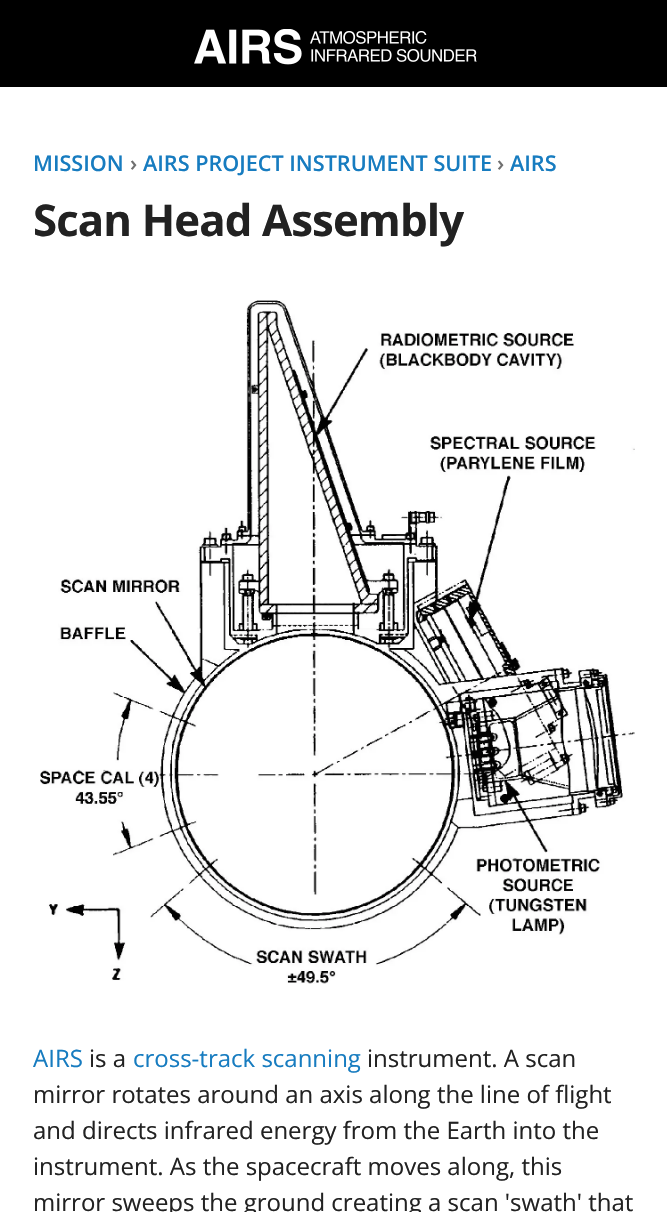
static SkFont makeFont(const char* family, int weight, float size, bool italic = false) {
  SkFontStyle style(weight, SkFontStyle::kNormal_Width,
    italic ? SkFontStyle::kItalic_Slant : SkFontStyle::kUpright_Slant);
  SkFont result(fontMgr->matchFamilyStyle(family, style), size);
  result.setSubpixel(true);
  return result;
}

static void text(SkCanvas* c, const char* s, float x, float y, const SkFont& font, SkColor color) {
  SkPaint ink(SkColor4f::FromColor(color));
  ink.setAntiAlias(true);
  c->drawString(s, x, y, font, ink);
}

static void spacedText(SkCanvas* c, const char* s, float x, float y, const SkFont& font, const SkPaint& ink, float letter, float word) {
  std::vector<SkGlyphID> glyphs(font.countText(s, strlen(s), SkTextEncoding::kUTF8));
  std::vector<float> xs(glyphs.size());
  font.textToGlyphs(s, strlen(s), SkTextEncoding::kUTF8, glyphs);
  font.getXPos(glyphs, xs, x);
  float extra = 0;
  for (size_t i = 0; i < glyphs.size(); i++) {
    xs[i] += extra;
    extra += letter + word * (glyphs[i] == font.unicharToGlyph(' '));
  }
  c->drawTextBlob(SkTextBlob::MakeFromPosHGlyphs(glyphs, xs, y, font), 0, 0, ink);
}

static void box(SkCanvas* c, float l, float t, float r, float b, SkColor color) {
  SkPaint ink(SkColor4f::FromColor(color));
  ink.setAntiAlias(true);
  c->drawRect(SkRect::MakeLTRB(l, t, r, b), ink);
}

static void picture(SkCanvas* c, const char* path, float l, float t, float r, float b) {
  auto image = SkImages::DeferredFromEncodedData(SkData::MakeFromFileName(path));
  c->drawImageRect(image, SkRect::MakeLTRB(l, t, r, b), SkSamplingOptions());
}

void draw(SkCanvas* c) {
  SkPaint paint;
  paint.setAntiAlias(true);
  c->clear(0xffffffff);
  box(c, 0, 0, 667, 87, 0xff000000);
  picture(c, "img_01.png", 194, 29, 477, 65);
  SkFont face1 = makeFont("Open Sans", 600, 21.6f);
  text(c, "MISSION", 33, 171, face1, 0xff177cc0);
  text(c, "›", 130, 171, face1, 0xff707070);
  text(c, "AIRS PROJECT INSTRUMENT SUITE", 143, 171, face1, 0xff177cc0);
  text(c, "›", 497, 171, face1, 0xff707070);
  text(c, "AIRS", 510, 171, face1, 0xff177cc0);
  SkFont face2 = makeFont("Open Sans", 700, 43.75f);
  paint.setColor(0xff222222);
  spacedText(c, "Scan Head Assembly", 33, 236, face2, paint, -0.9f, 0);
  picture(c, "img_02.png", 40, 300, 635, 984);
  SkFont face3 = makeFont("Open Sans", 400, 24);
  text(c, "AIRS", 33, 1067, face3, 0xff177cc0);
  text(c, "is a", 89, 1067, face3, 0xff222222);
  text(c, "cross-track scanning", 133, 1067, face3, 0xff177cc0);
  text(c, "instrument. A scan", 367, 1067, face3, 0xff222222);
  text(c, "mirror rotates around an axis along the line of flight", 33, 1103, face3, 0xff222222);
  text(c, "and directs infrared energy from the Earth into the", 33, 1139, face3, 0xff222222);
  text(c, "instrument. As the spacecraft moves along, this", 33, 1175, face3, 0xff222222);
  text(c, "mirror sweeps the ground creating a scan 'swath' that", 33, 1211, face3, 0xff222222);
}
